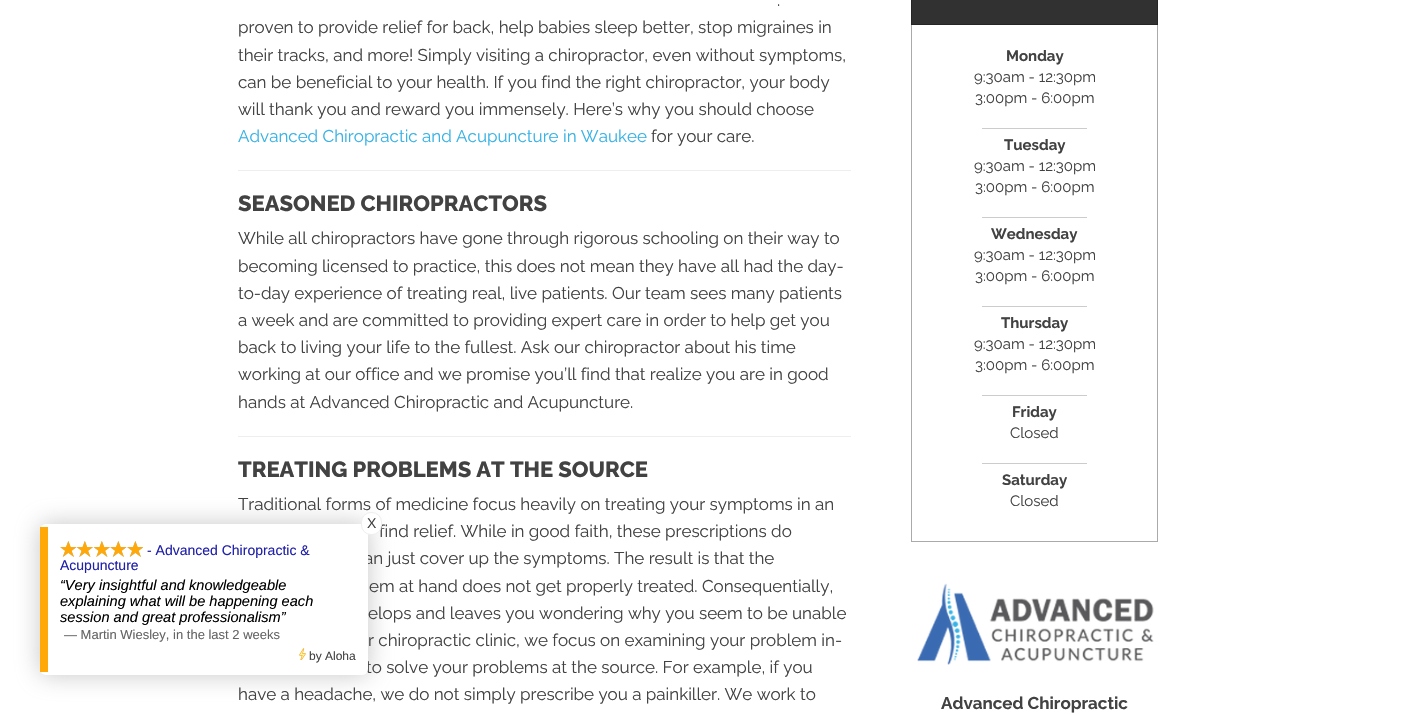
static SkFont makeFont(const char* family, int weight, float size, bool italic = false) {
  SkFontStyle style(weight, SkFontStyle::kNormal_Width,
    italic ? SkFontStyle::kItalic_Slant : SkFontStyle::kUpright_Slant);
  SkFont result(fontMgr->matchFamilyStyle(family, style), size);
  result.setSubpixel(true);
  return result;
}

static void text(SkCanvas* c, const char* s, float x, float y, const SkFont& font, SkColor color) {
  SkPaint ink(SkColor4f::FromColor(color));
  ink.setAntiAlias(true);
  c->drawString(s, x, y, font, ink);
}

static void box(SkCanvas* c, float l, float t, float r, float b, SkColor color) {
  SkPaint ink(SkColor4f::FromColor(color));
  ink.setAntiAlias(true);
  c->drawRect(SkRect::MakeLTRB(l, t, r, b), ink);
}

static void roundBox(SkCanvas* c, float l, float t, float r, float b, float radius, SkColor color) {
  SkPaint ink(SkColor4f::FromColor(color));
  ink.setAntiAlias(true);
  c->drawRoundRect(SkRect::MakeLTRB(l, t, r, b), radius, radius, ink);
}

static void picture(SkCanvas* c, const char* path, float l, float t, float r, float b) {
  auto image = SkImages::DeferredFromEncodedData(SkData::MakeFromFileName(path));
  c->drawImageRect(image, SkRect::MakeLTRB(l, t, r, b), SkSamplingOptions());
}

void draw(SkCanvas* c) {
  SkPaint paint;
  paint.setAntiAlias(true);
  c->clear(0xffffffff);
  paint.setColor(0x99a0a0a0);
  paint.setMaskFilter(SkMaskFilter::MakeBlur(kNormal_SkBlurStyle, 12));
  c->drawRoundRect(SkRect::MakeLTRB(40, 524, 368, 675), 6, 6, paint);
  paint.setMaskFilter(nullptr);
  SkFont face1 = makeFont("Raleway", 400, 17);
  text(c, "an just cover up the symptoms. The result is that the", 364, 564, face1, 0xff424242);
  text(c, "to solve your problems at the source. For example, if you", 366, 673, face1, 0xff424242);
  roundBox(c, 40, 524, 368, 675, 6, 0xffffffff);
  box(c, 40, 527, 48, 672, 0xffffa808);
  text(c, "Traditional forms of medicine focus heavily on treating your symptoms in an", 238, 510, face1, 0xff424242);
  text(c, "find relief. While in good faith, these prescriptions do", 379, 537, face1, 0xff424242);
  paint.setColor(0xffffffff);
  c->drawRoundRect(SkRect::MakeLTRB(361.5f, 512.5f, 381.5f, 534.5f), 9.5f, 9.5f, paint);
  paint.setStyle(SkPaint::kStroke_Style);
  paint.setStrokeWidth(1);
  paint.setColor(0xffeeeeee);
  c->drawRoundRect(SkRect::MakeLTRB(361.5f, 512.5f, 381.5f, 534.5f), 9.5f, 9.5f, paint);
  SkFont face2 = makeFont("Liberation Sans", 400, 14);
  text(c, "X", 367, 528, face2, 0xff424242);
  picture(c, "img_01.png", 60, 541, 143, 557);
  picture(c, "img_02.png", 60, 541, 143, 557);
  text(c, "- Advanced Chiropractic &", 147, 555, face2, 0xff2020aa);
  text(c, "Acupuncture", 60, 570, face2, 0xff2020aa);
  SkFont face3 = makeFont("Liberation Sans", 400, 14.6f, true);
  text(c, "“Very insightful and knowledgeable", 60, 590, face3, 0xff000000);
  text(c, "explaining what will be happening each", 60, 606, face3, 0xff000000);
  text(c, "session and great professionalism”", 60, 622, face3, 0xff000000);
  SkFont face4 = makeFont("Liberation Sans", 400, 13);
  text(c, "— Martin Wiesley, in the last 2 weeks", 64, 639, face4, 0xff646464);
  picture(c, "img_03.png", 299, 648, 306, 660);
  SkFont face5 = makeFont("Liberation Sans", 400, 12);
  text(c, "by Aloha", 309, 660, face5, 0xff424242);
  text(c, ".", 777, 6, face1, 0xff424242);
  text(c, "proven to provide relief for back, help babies sleep better, stop migraines in", 238, 33, face1, 0xff424242);
  text(c, "their tracks, and more! Simply visiting a chiropractor, even without symptoms,", 238, 61, face1, 0xff424242);
  text(c, "can be beneficial to your health. If you find the right chiropractor, your body", 238, 88, face1, 0xff424242);
  text(c, "will thank you and reward you immensely. Here’s why you should choose", 238, 115, face1, 0xff424242);
  text(c, "Advanced Chiropractic and Acupuncture in Waukee", 238, 142, face1, 0xff35b2e6);
  text(c, "for your care.", 651, 142, face1, 0xff424242);
  box(c, 238, 170, 851, 171, 0xffeeeeee);
  SkFont face6 = makeFont("Raleway", 800, 22);
  text(c, "SEASONED CHIROPRACTORS", 238, 211, face6, 0xff424242);
  text(c, "While all chiropractors have gone through rigorous schooling on their way to", 238, 244, face1, 0xff424242);
  text(c, "becoming licensed to practice, this does not mean they have all had the day-", 238, 272, face1, 0xff424242);
  text(c, "to-day experience of treating real, live patients. Our team sees many patients", 238, 299, face1, 0xff424242);
  text(c, "a week and are committed to providing expert care in order to help get you", 238, 326, face1, 0xff424242);
  text(c, "back to living your life to the fullest. Ask our chiropractor about his time", 238, 353, face1, 0xff424242);
  text(c, "working at our office and we promise you’ll find that realize you are in good", 238, 380, face1, 0xff424242);
  text(c, "hands at Advanced Chiropractic and Acupuncture.", 238, 408, face1, 0xff424242);
  box(c, 238, 436, 851, 437, 0xffeeeeee);
  text(c, "TREATING PROBLEMS AT THE SOURCE", 238, 477, face6, 0xff424242);
  text(c, "em at hand does not get properly treated. Consequentially,", 369, 592, face1, 0xff424242);
  text(c, "elops and leaves you wondering why you seem to be unable", 368, 619, face1, 0xff424242);
  text(c, "r chiropractic clinic, we focus on examining your problem in-", 368, 646, face1, 0xff424242);
  text(c, "have a headache, we do not simply prescribe you a painkiller. We work to", 238, 700, face1, 0xff424242);
  paint.setStyle(SkPaint::kFill_Style);
  paint.setColor(0xff313131);
  c->drawRect(SkRect::MakeLTRB(911.5f, -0.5f, 1157.5f, 24.5f), paint);
  paint.setStyle(SkPaint::kStroke_Style);
  paint.setColor(0xff252525);
  c->drawRect(SkRect::MakeLTRB(911.5f, -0.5f, 1157.5f, 24.5f), paint);
  box(c, 1157, 25, 1158, 542, 0xffaaaaaa);
  box(c, 911, 541, 1158, 542, 0xffaaaaaa);
  box(c, 911, 25, 912, 542, 0xffaaaaaa);
  SkFont face7 = makeFont("Raleway", 700, 15);
  text(c, "Monday", 1006, 61, face7, 0xff424242);
  SkFont face8 = makeFont("Raleway", 400, 15);
  text(c, "9:30am - 12:30pm", 974, 82, face8, 0xff424242);
  text(c, "3:00pm - 6:00pm", 975, 103, face8, 0xff424242);
  box(c, 982, 128, 1087, 129, 0xffcccccc);
  text(c, "Tuesday", 1004, 150, face7, 0xff424242);
  text(c, "9:30am - 12:30pm", 974, 171, face8, 0xff424242);
  text(c, "3:00pm - 6:00pm", 975, 192, face8, 0xff424242);
  box(c, 982, 217, 1087, 218, 0xffcccccc);
  text(c, "Wednesday", 991, 239, face7, 0xff424242);
  text(c, "9:30am - 12:30pm", 974, 260, face8, 0xff424242);
  text(c, "3:00pm - 6:00pm", 975, 281, face8, 0xff424242);
  box(c, 982, 306, 1087, 307, 0xffcccccc);
  text(c, "Thursday", 1001, 328, face7, 0xff424242);
  text(c, "9:30am - 12:30pm", 974, 349, face8, 0xff424242);
  text(c, "3:00pm - 6:00pm", 975, 370, face8, 0xff424242);
  box(c, 982, 395, 1087, 396, 0xffcccccc);
  text(c, "Friday", 1012, 417, face7, 0xff424242);
  text(c, "Closed", 1010, 438, face8, 0xff424242);
  box(c, 982, 463, 1087, 464, 0xffcccccc);
  text(c, "Saturday", 1002, 485, face7, 0xff424242);
  text(c, "Closed", 1010, 506, face8, 0xff424242);
  picture(c, "img_04.png", 917, 583, 1154, 665);
  SkFont face9 = makeFont("Raleway", 700, 17);
  text(c, "Advanced Chiropractic", 941, 709, face9, 0xff424242);
}
